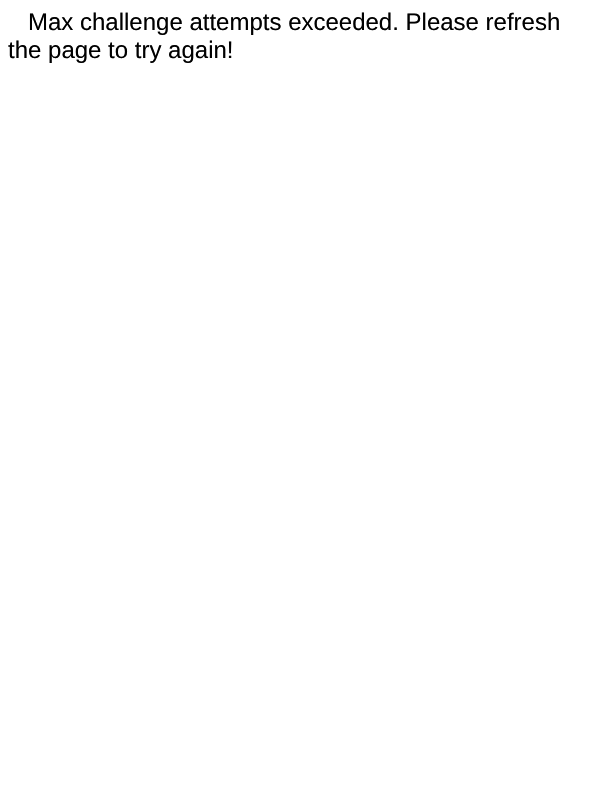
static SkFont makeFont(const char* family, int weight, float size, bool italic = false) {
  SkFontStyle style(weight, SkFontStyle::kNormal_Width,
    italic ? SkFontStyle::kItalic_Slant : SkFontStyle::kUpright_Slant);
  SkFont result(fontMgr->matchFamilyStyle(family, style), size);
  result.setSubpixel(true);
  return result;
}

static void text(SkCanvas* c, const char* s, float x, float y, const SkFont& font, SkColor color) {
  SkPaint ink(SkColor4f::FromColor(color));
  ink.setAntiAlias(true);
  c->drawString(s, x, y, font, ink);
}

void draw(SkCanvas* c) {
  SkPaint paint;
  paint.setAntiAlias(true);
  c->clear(0xffffffff);
  SkFont face1 = makeFont("Liberation Sans", 400, 24);
  text(c, "Max challenge attempts exceeded. Please refresh", 28, 30, face1, 0xff000000);
  text(c, "the page to try again!", 8, 58, face1, 0xff000000);
}
